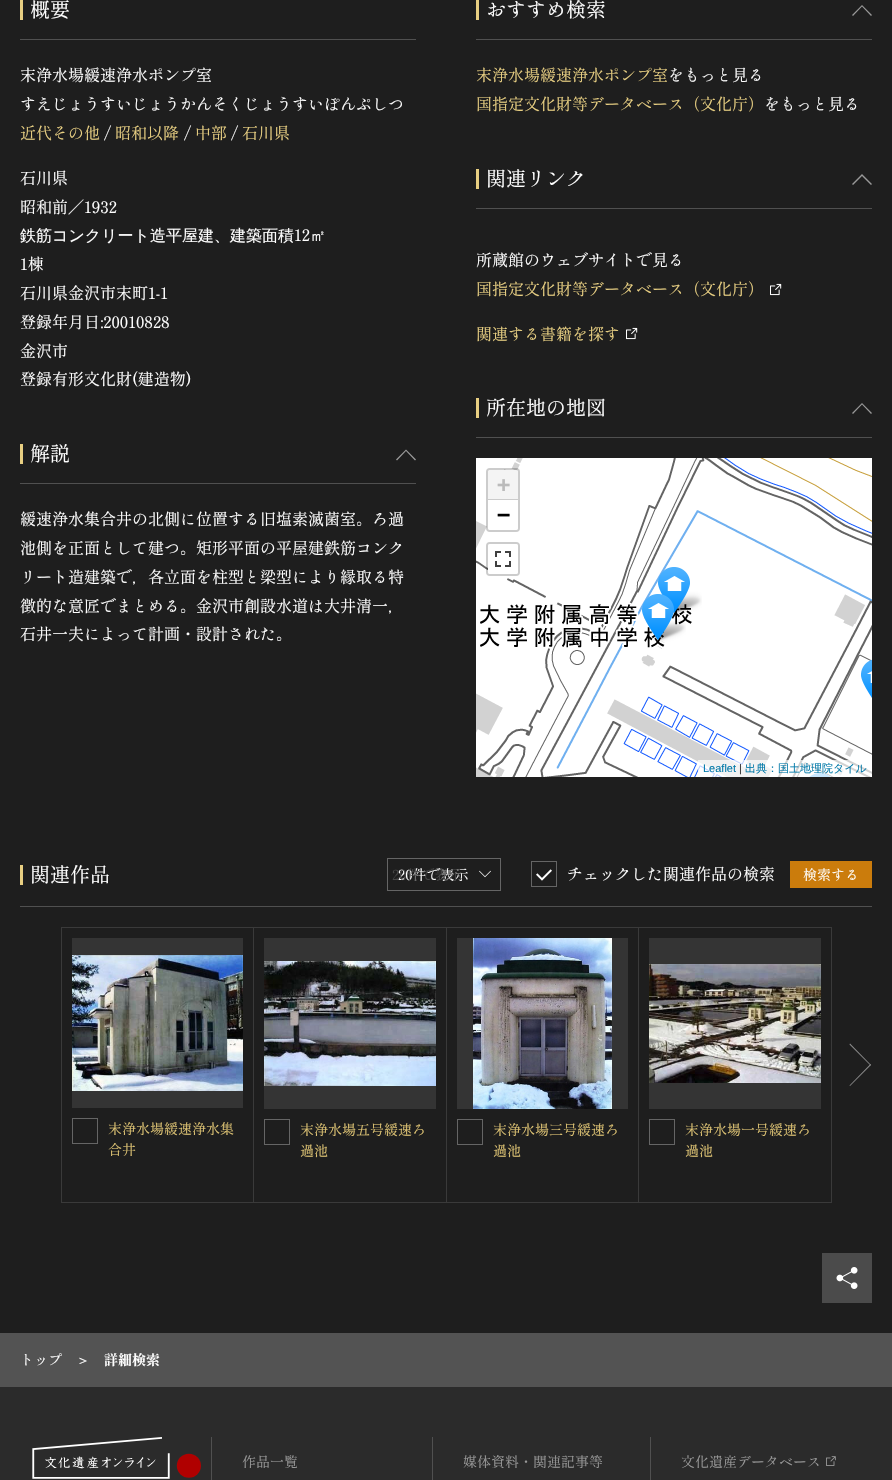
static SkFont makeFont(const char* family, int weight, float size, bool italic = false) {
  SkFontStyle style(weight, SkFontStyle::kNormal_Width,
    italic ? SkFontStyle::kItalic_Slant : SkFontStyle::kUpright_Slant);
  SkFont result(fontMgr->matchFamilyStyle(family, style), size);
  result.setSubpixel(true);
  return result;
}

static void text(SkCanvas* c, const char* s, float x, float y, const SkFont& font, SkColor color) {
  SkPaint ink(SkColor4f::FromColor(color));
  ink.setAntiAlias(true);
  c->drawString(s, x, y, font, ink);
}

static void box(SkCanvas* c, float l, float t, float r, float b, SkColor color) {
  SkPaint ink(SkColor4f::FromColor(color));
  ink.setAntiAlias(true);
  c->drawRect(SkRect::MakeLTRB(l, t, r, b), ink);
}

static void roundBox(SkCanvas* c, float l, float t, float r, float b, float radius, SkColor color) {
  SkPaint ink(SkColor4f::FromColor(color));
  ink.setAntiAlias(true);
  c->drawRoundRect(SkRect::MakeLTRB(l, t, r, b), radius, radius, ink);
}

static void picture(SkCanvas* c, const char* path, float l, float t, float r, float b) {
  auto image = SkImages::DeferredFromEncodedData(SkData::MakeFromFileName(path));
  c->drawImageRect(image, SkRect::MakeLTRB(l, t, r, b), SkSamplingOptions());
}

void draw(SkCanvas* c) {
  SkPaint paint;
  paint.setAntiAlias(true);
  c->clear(0xff1e1e1e);
  box(c, 20, 39, 416, 40, 0xff505050);
  box(c, 20, 0, 23, 20, 0xffe8cf82);
  SkFont face1 = makeFont("Shippori Mincho", 400, 20);
  text(c, "概要", 30, 17, face1, 0xffffffff);
  SkFont face2 = makeFont("Shippori Mincho", 400, 16);
  text(c, "末浄水場緩速浄水ポンプ室", 20, 81, face2, 0xffffffff);
  text(c, "すえじょうすいじょうかんそくじょうすいぽんぷしつ", 20, 110, face2, 0xffffffff);
  text(c, "近代その他", 20, 139, face2, 0xffe8cf82);
  text(c, "/", 104, 139, face2, 0xffffffff);
  text(c, "昭和以降", 115, 139, face2, 0xffe8cf82);
  text(c, "/", 184, 139, face2, 0xffffffff);
  text(c, "中部", 195, 139, face2, 0xffe8cf82);
  text(c, "/", 231, 139, face2, 0xffffffff);
  text(c, "石川県", 242, 139, face2, 0xffe8cf82);
  text(c, "石川県", 20, 184, face2, 0xffffffff);
  text(c, "昭和前／1932", 20, 213, face2, 0xffffffff);
  SkFont face3 = makeFont("WenQuanYi Zen Hei", 500, 16);
  text(c, "鉄筋コンクリート造平屋建、建築面積", 20, 241, face3, 0xffffffff);
  text(c, "12", 294, 241, face2, 0xffffffff);
  text(c, "㎡", 310, 241, face3, 0xffffffff);
  text(c, "1棟", 20, 270, face2, 0xffffffff);
  text(c, "石川県金沢市末町1-1", 20, 299, face2, 0xffffffff);
  text(c, "登録年月日:20010828", 20, 328, face2, 0xffffffff);
  text(c, "金沢市", 20, 357, face2, 0xffffffff);
  text(c, "登録有形文化財(建造物)", 20, 385, face2, 0xffffffff);
  box(c, 20, 483, 416, 484, 0xff505050);
  box(c, 20, 444, 23, 464, 0xffe8cf82);
  text(c, "解説", 30, 461, face1, 0xffffffff);
  paint.setColor(0xff999999);
  c->drawPath(SkPathBuilder().moveTo(406, 449.5f).lineTo(416, 459.5f).lineTo(415, 460.5f).lineTo(406, 451).lineTo(397, 460.5f).lineTo(396, 459.5f).close().detach(), paint);
  text(c, "緩速浄水集合井の北側に位置する旧塩素滅菌室。ろ過", 20, 525, face2, 0xffffffff);
  text(c, "池側を正面として建つ。矩形平面の平屋建鉄筋コンク", 20, 554, face2, 0xffffffff);
  text(c, "リート造建築で，各立面を柱型と梁型により縁取る特", 20, 583, face2, 0xffffffff);
  text(c, "徴的な意匠でまとめる。金沢市創設水道は大井清一，", 20, 612, face2, 0xffffffff);
  text(c, "石井一夫によって計画・設計された。", 20, 640, face2, 0xffffffff);
  box(c, 476, 39, 872, 40, 0xff505050);
  box(c, 476, 0, 479, 20, 0xffe8cf82);
  text(c, "おすすめ検索", 486, 17, face1, 0xffffffff);
  c->drawPath(SkPathBuilder().moveTo(862, 5).lineTo(872, 15).lineTo(871, 16).lineTo(862, 6.5f).lineTo(853, 16).lineTo(852, 15).close().detach(), paint);
  text(c, "末浄水場緩速浄水ポンプ室", 476, 81, face2, 0xffe8cf82);
  text(c, "をもっと見る", 668, 81, face2, 0xffffffff);
  text(c, "国指定文化財等データベース（文化庁）", 476, 110, face2, 0xffe8cf82);
  text(c, "をもっと見る", 764, 110, face2, 0xffffffff);
  box(c, 476, 208, 872, 209, 0xff505050);
  box(c, 476, 169, 479, 189, 0xffe8cf82);
  text(c, "関連リンク", 486, 186, face1, 0xffffffff);
  c->drawPath(SkPathBuilder().moveTo(862, 174).lineTo(872, 184).lineTo(871, 185).lineTo(862, 176).lineTo(853, 185).lineTo(852, 184).close().detach(), paint);
  text(c, "所蔵館のウェブサイトで見る", 476, 266, face2, 0xffffffff);
  text(c, "国指定文化財等データベース（文化庁）", 476, 295, face2, 0xffe8cf82);
  picture(c, "img_01.png", 770, 283, 782, 296);
  text(c, "関連する書籍を探す", 476, 340, face2, 0xffe8cf82);
  picture(c, "img_01.png", 626, 327, 638, 340);
  box(c, 476, 437, 872, 438, 0xff505050);
  box(c, 476, 398, 479, 418, 0xffe8cf82);
  text(c, "所在地の地図", 486, 415, face1, 0xffffffff);
  c->drawPath(SkPathBuilder().moveTo(862, 403).lineTo(872, 413).lineTo(871, 414).lineTo(862, 404.5f).lineTo(853, 414).lineTo(852, 413).close().detach(), paint);
  picture(c, "img_02.png", 476, 458, 709, 635);
  picture(c, "img_03.png", 709, 458, 872, 635);
  picture(c, "img_04.png", 476, 635, 709, 777);
  picture(c, "img_05.png", 709, 635, 872, 777);
  picture(c, "img_06.png", 658, 567, 702, 614);
  picture(c, "img_07.png", 642, 594, 686, 642);
  picture(c, "img_08.png", 861, 659, 872, 698);
  picture(c, "img_09.png", 809, 773, 831, 777);
  paint.setStyle(SkPaint::kStroke_Style);
  paint.setStrokeWidth(2);
  paint.setColor(0x33000000);
  c->drawRoundRect(SkRect::MakeLTRB(487, 469, 519, 531), 3, 3, paint);
  paint.setStyle(SkPaint::kFill_Style);
  paint.setColor(0xfff4f4f4);
  c->drawPath(SkPathBuilder().moveTo(490, 470).lineTo(516, 470).cubicTo(517, 470, 518, 471, 518, 472).lineTo(518, 500).lineTo(488, 500).lineTo(488, 472).cubicTo(488, 471, 489, 470, 490, 470).close().detach(), paint);
  box(c, 488, 499, 518, 500, 0xffcccccc);
  SkFont face4 = makeFont("DejaVu Sans Mono", 700, 22);
  text(c, "+", 497, 492, face4, 0xffbbbbbb);
  paint.setColor(0xffffffff);
  c->drawPath(SkPathBuilder().moveTo(488, 500).lineTo(518, 500).lineTo(518, 528).cubicTo(518, 529, 517, 530, 516, 530).lineTo(490, 530).cubicTo(489, 530, 488, 529, 488, 528).close().detach(), paint);
  text(c, "−", 497, 522, face4, 0xff000000);
  paint.setStyle(SkPaint::kStroke_Style);
  paint.setColor(0x33000000);
  c->drawRoundRect(SkRect::MakeLTRB(487, 543, 519, 575), 3, 3, paint);
  roundBox(c, 488, 544, 518, 574, 2, 0xffffffff);
  picture(c, "img_10.png", 495, 551, 511, 567);
  box(c, 698, 760, 872, 777, 0xb3ffffff);
  SkFont face5 = makeFont("Liberation Sans", 400, 11);
  text(c, "Leaflet", 703, 772, face5, 0xff0078a8);
  text(c, "|", 739, 772, face5, 0xff333333);
  SkFont face6 = makeFont("WenQuanYi Zen Hei", 500, 11);
  text(c, "出典：国土地理院タイル", 745, 772, face6, 0xff0078a8);
  box(c, 20, 906, 872, 907, 0xff505050);
  box(c, 20, 865, 23, 885, 0xffe8cf82);
  text(c, "関連作品", 30, 882, face1, 0xffffffff);
  paint.setStrokeWidth(1);
  paint.setColor(0xff656565);
  c->drawRect(SkRect::MakeLTRB(387.5f, 858.5f, 500.5f, 890.5f), paint);
  SkFont face7 = makeFont("Shippori Mincho", 400, 14);
  text(c, "20件で表示", 398, 880, face7, 0xffffffff);
  text(c, "20件で表示", 392, 880, face7, 0xff464646);
  picture(c, "img_11.png", 479, 870, 491, 878);
  c->drawRect(SkRect::MakeLTRB(531.5f, 861.5f, 556.5f, 886.5f), paint);
  text(c, "チェックした関連作品の検索", 567, 880, face2, 0xffffffff);
  picture(c, "img_12.png", 536, 869, 552, 881);
  box(c, 790, 861, 872, 888, 0xffcb7c0c);
  text(c, "検索する", 803, 880, face7, 0xffffffff);
  paint.setStyle(SkPaint::kFill_Style);
  paint.setColor(0xff8f8f8f);
  c->drawPath(SkPathBuilder().moveTo(849.5f, 1044.5f).lineTo(850, 1043.5f).lineTo(871, 1065).lineTo(870.5f, 1065.5f).close().detach(), paint);
  c->drawPath(SkPathBuilder().moveTo(849.5f, 1085.5f).lineTo(870.5f, 1064).lineTo(871, 1065).lineTo(850, 1086).close().detach(), paint);
  paint.setStyle(SkPaint::kStroke_Style);
  paint.setColor(0xff3a3a3a);
  c->drawRect(SkRect::MakeLTRB(61.5f, 927.5f, 253.5f, 1202.5f), paint);
  box(c, 72, 938, 243, 1108, 0xff343434);
  picture(c, "img_13.png", 72, 955, 243, 1091);
  paint.setColor(0xff656565);
  c->drawRect(SkRect::MakeLTRB(72.5f, 1118.5f, 97.5f, 1143.5f), paint);
  text(c, "末浄水場緩速浄水集", 108, 1134, face7, 0xffdfc474);
  text(c, "合井", 108, 1155, face7, 0xffdfc474);
  box(c, 254, 927, 832, 928, 0xff3a3a3a);
  box(c, 446, 927, 447, 1203, 0xff3a3a3a);
  box(c, 254, 1202, 447, 1203, 0xff3a3a3a);
  box(c, 264, 938, 436, 1109, 0xff343434);
  picture(c, "img_14.png", 264, 961, 436, 1086);
  c->drawRect(SkRect::MakeLTRB(264.5f, 1119.5f, 289.5f, 1144.5f), paint);
  text(c, "末浄水場五号緩速ろ", 300, 1135, face7, 0xffdfc474);
  text(c, "過池", 300, 1156, face7, 0xffdfc474);
  box(c, 638, 927, 639, 1203, 0xff3a3a3a);
  box(c, 447, 1202, 639, 1203, 0xff3a3a3a);
  box(c, 457, 938, 628, 1109, 0xff343434);
  picture(c, "img_15.png", 473, 938, 612, 1109);
  c->drawRect(SkRect::MakeLTRB(457.5f, 1119.5f, 482.5f, 1144.5f), paint);
  text(c, "末浄水場三号緩速ろ", 493, 1135, face7, 0xffdfc474);
  text(c, "過池", 493, 1156, face7, 0xffdfc474);
  box(c, 831, 927, 832, 1203, 0xff3a3a3a);
  box(c, 639, 1202, 832, 1203, 0xff3a3a3a);
  box(c, 649, 938, 821, 1109, 0xff343434);
  picture(c, "img_16.png", 649, 964, 821, 1083);
  c->drawRect(SkRect::MakeLTRB(649.5f, 1119.5f, 674.5f, 1144.5f), paint);
  text(c, "末浄水場一号緩速ろ", 685, 1135, face7, 0xffdfc474);
  text(c, "過池", 685, 1156, face7, 0xffdfc474);
  box(c, 822, 1253, 872, 1303, 0xff4b4b4b);
  picture(c, "img_17.png", 836, 1267, 858, 1289);
  box(c, 0, 1333, 892, 1387, 0xff535353);
  text(c, "トップ", 20, 1365, face7, 0xffffffff);
  SkFont face8 = makeFont("WenQuanYi Zen Hei", 500, 14);
  text(c, "＞", 76, 1365, face8, 0xffffffff);
  SkFont face9 = makeFont("Shippori Mincho", 700, 14);
  text(c, "詳細検索", 104, 1365, face9, 0xffffffff);
  box(c, 0, 1387, 892, 1480, 0xff2b2b2b);
  picture(c, "img_18.png", 32, 1437, 201, 1479);
  box(c, 211, 1437, 212, 1480, 0xff505050);
  text(c, "作品一覧", 242, 1467, face7, 0xff999999);
  box(c, 432, 1437, 433, 1480, 0xff505050);
  text(c, "媒体資料・関連記事等", 463, 1467, face7, 0xff999999);
  box(c, 650, 1437, 651, 1480, 0xff505050);
  text(c, "文化遺産データベース", 681, 1467, face7, 0xff999999);
  picture(c, "img_19.png", 826, 1456, 836, 1466);
}
